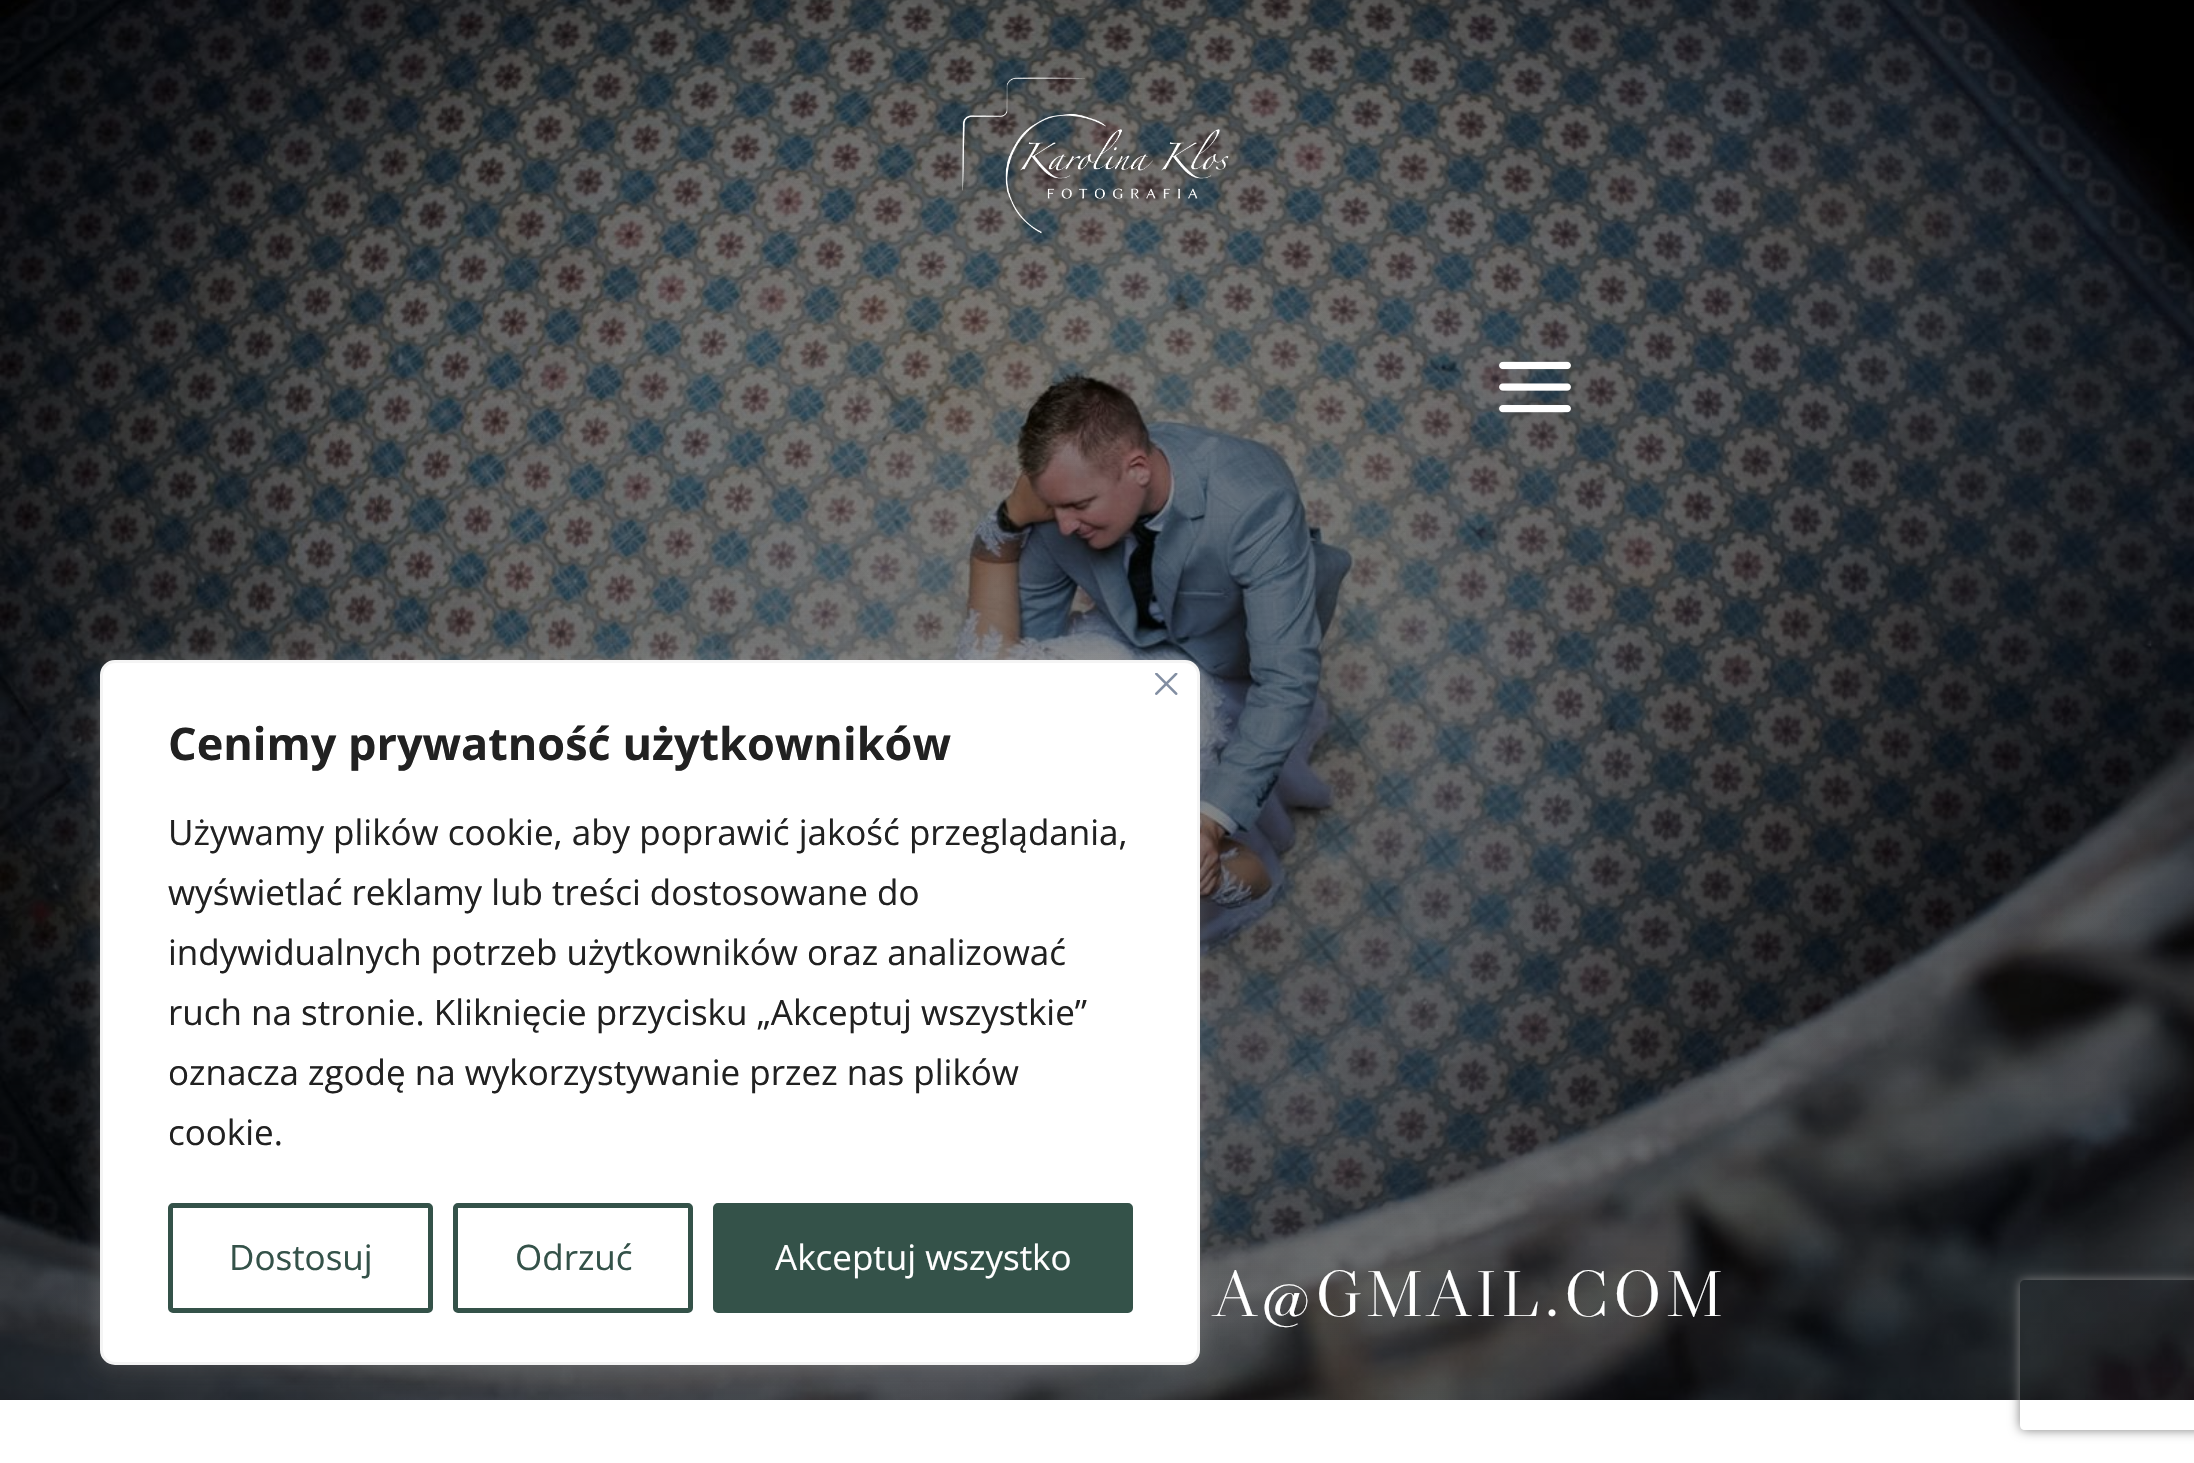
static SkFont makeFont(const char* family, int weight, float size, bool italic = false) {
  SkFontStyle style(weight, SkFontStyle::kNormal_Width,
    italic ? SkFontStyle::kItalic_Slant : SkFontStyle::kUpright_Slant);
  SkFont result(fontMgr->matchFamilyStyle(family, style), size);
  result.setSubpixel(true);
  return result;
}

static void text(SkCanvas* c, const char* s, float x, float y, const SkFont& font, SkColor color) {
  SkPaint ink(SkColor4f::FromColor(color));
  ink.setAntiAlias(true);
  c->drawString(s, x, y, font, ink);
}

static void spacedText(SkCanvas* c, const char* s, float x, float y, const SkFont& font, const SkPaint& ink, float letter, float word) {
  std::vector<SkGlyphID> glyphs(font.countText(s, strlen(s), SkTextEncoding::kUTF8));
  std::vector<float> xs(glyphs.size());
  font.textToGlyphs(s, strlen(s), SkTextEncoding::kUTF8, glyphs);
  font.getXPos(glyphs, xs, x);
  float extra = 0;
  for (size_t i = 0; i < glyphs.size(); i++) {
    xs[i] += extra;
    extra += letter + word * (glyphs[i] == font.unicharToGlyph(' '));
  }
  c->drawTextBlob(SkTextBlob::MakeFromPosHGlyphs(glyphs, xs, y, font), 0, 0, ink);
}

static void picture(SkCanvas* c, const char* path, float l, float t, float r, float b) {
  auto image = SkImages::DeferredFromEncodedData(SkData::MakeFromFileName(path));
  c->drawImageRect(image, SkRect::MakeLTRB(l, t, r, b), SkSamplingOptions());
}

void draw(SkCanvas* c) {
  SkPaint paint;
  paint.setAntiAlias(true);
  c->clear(0xffffffff);
  picture(c, "img_04.png", 0, 0, 2194, 1400);
  paint.setColor(0x4dacabab);
  paint.setMaskFilter(SkMaskFilter::MakeBlur(kNormal_SkBlurStyle, 12.5f));
  c->drawRoundRect(SkRect::MakeLTRB(100, 658, 1200, 1363), 15, 15, paint);
  paint.setMaskFilter(nullptr);
  paint.setColor(0xffffffff);
  c->drawRoundRect(SkRect::MakeLTRB(101.5f, 661.5f, 1198.5f, 1363.5f), 13.5f, 13.5f, paint);
  paint.setStyle(SkPaint::kStroke_Style);
  paint.setStrokeWidth(3);
  paint.setColor(0xfff4f4f4);
  c->drawRoundRect(SkRect::MakeLTRB(101.5f, 661.5f, 1198.5f, 1363.5f), 13.5f, 13.5f, paint);
  picture(c, "img_01.png", 1155, 673, 1178, 695);
  SkFont face1 = makeFont("Open Sans", 700, 45);
  text(c, "Cenimy prywatność użytkowników", 168, 760, face1, 0xff212121);
  SkFont face2 = makeFont("Open Sans", 400, 35);
  text(c, "Używamy plików cookie, aby poprawić jakość przeglądania,", 168, 845, face2, 0xff212121);
  text(c, "wyświetlać reklamy lub treści dostosowane do", 168, 905, face2, 0xff212121);
  text(c, "indywidualnych potrzeb użytkowników oraz analizować", 168, 965, face2, 0xff212121);
  text(c, "ruch na stronie. Kliknięcie przycisku „Akceptuj wszystkie”", 168, 1025, face2, 0xff212121);
  text(c, "oznacza zgodę na wykorzystywanie przez nas plików", 168, 1085, face2, 0xff212121);
  text(c, "cookie.", 168, 1145, face2, 0xff212121);
  paint.setStrokeWidth(5);
  paint.setColor(0xff345249);
  c->drawRoundRect(SkRect::MakeLTRB(170.5f, 1205.5f, 430.5f, 1310.5f), 2.5f, 2.5f, paint);
  text(c, "Dostosuj", 229, 1270, face2, 0xff345249);
  c->drawRoundRect(SkRect::MakeLTRB(455.5f, 1205.5f, 690.5f, 1310.5f), 2.5f, 2.5f, paint);
  text(c, "Odrzuć", 515, 1270, face2, 0xff345249);
  paint.setStyle(SkPaint::kFill_Style);
  c->drawRoundRect(SkRect::MakeLTRB(715.5f, 1205.5f, 1130.5f, 1310.5f), 2.5f, 2.5f, paint);
  paint.setStyle(SkPaint::kStroke_Style);
  c->drawRoundRect(SkRect::MakeLTRB(715.5f, 1205.5f, 1130.5f, 1310.5f), 2.5f, 2.5f, paint);
  text(c, "Akceptuj wszystko", 775, 1270, face2, 0xffffffff);
  picture(c, "img_02.png", 962, 77, 1231, 235);
  picture(c, "img_03.png", 1499, 361, 1571, 413);
  SkFont face3 = makeFont("Libre Caslon Display", 400, 65);
  paint.setStyle(SkPaint::kFill_Style);
  paint.setColor(0xffffffff);
  spacedText(c, "A@GMAIL.COM", 1214, 1316, face3, paint, 5, 0);
  c->save();
  c->clipPath(SkPathBuilder(SkPathFillType::kEvenOdd).moveTo(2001, 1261).lineTo(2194, 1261).lineTo(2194, 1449).lineTo(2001, 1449).close().moveTo(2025, 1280).lineTo(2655, 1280).cubicTo(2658, 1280, 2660, 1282, 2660, 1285).lineTo(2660, 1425).cubicTo(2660, 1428, 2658, 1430, 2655, 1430).lineTo(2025, 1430).cubicTo(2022, 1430, 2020, 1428, 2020, 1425).lineTo(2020, 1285).cubicTo(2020, 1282, 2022, 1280, 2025, 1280).close().detach(), true);
  paint.setColor(0xff808080);
  paint.setMaskFilter(SkMaskFilter::MakeBlur(kNormal_SkBlurStyle, 6));
  c->drawRoundRect(SkRect::MakeLTRB(2020, 1280, 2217, 1430), 5, 5, paint);
  paint.setMaskFilter(nullptr);
  c->restore();
}
